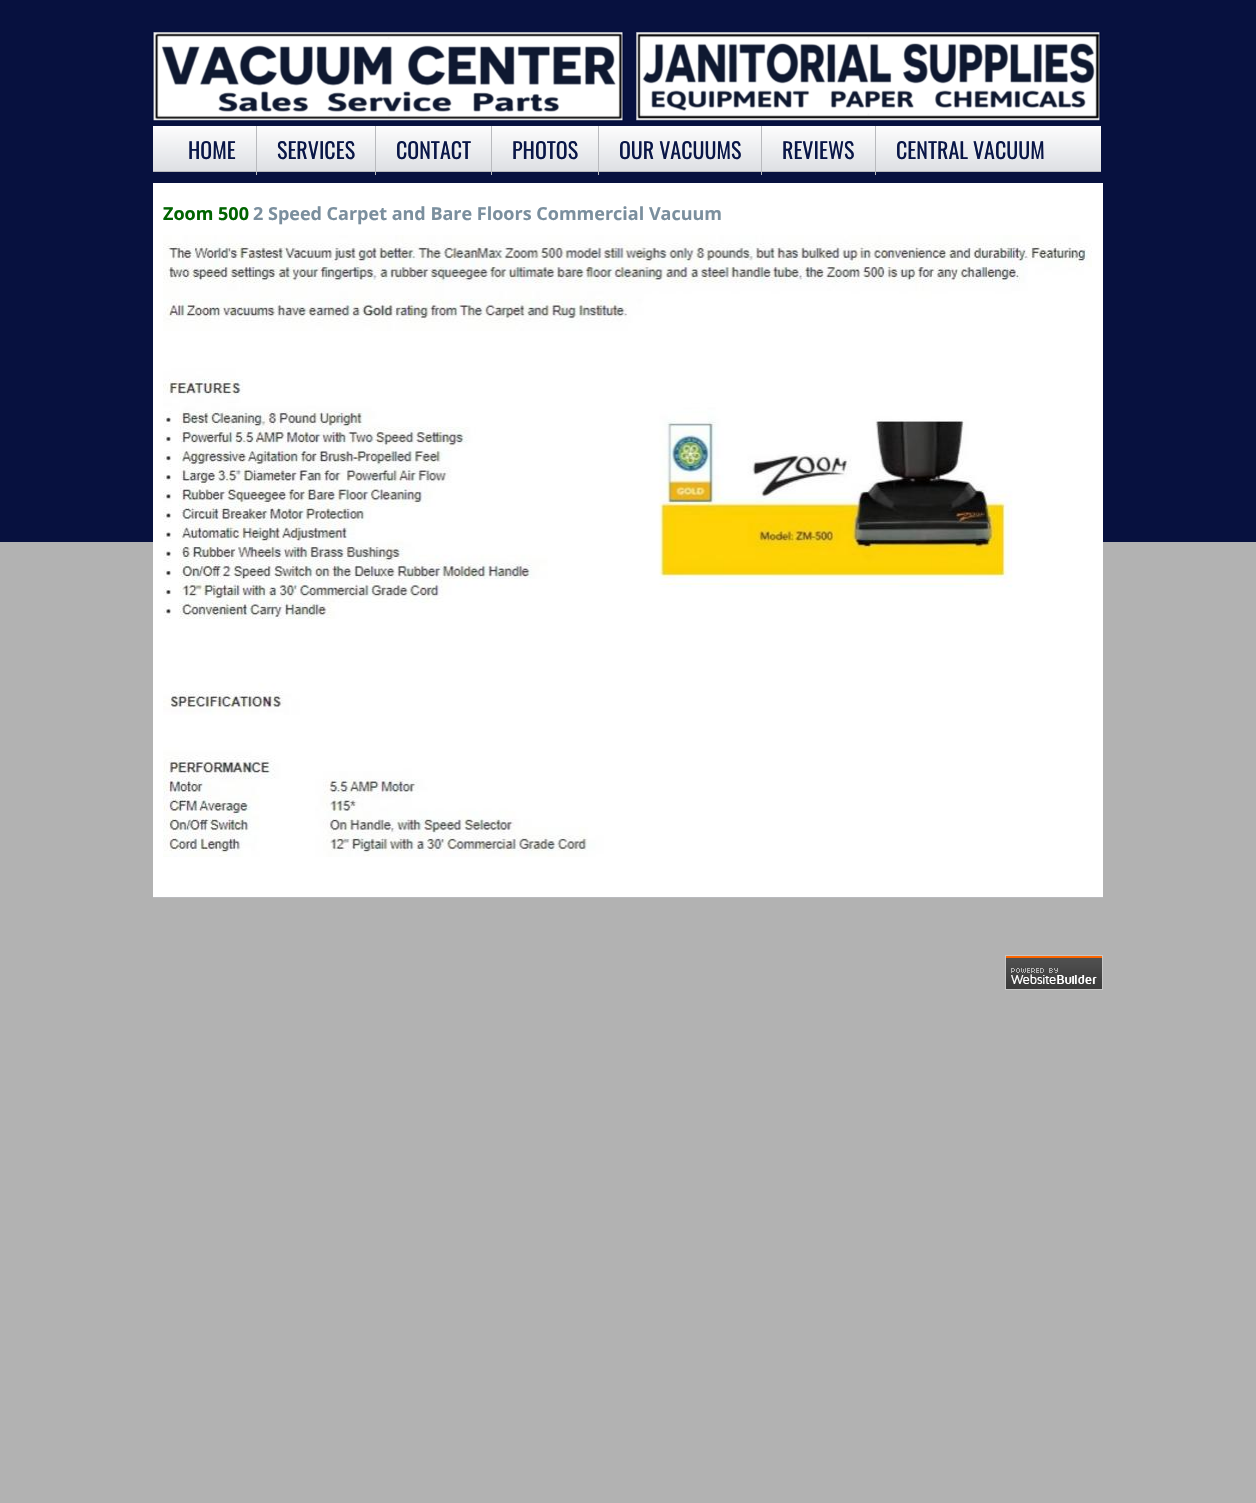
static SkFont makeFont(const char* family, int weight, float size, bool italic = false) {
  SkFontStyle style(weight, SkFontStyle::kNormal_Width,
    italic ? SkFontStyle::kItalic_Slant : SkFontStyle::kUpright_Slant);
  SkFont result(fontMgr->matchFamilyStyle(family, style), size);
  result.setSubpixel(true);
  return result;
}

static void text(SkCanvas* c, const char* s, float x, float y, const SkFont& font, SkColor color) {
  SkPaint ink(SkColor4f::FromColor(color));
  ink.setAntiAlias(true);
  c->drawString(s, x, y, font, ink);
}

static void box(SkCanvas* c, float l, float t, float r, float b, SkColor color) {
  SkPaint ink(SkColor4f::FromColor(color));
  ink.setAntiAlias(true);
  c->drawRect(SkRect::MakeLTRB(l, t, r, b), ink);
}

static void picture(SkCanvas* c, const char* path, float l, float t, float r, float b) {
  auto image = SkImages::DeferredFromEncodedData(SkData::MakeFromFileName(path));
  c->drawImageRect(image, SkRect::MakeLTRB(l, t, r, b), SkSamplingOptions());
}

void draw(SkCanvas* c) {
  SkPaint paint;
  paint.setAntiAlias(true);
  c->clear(0xffb2b2b2);
  box(c, 0, 0, 1256, 542, 0xff07113f);
  box(c, 153, 183, 1103, 897, 0xffffffff);
  {
    const SkColor colors[] = {0xffffffff, 0xffdee0e4};
    const float stops[] = {0, 1};
    const SkPoint ends[] = {{627, 122}, {627, 171}};
    paint.setShader(SkGradientShader::MakeLinear(ends, colors, stops, 2, SkTileMode::kClamp));
    paint.setAlpha(255);
  }
  c->drawRect(SkRect::MakeLTRB(153, 126, 1101, 171), paint);
  box(c, 153, 171, 1101, 172, 0xffb9babe);
  box(c, 256, 123, 257, 175, 0xffb9babe);
  box(c, 375, 123, 376, 175, 0xffb9babe);
  box(c, 491, 123, 492, 175, 0xffb9babe);
  box(c, 598, 123, 599, 175, 0xffb9babe);
  box(c, 761, 123, 762, 175, 0xffb9babe);
  box(c, 875, 123, 876, 175, 0xffb9babe);
  picture(c, "img_01.png", 152, 32, 1101, 126);
  SkFont face1 = makeFont("Oswald", 400, 22);
  text(c, "HOME", 188, 159, face1, 0xff091647);
  text(c, "SERVICES", 277, 159, face1, 0xff091647);
  text(c, "CONTACT", 396, 159, face1, 0xff091647);
  text(c, "PHOTOS", 512, 159, face1, 0xff091647);
  text(c, "OUR VACUUMS", 619, 159, face1, 0xff091647);
  text(c, "REVIEWS", 782, 159, face1, 0xff091647);
  text(c, "CENTRAL VACUUM", 896, 159, face1, 0xff091647);
  SkFont face2 = makeFont("Open Sans", 700, 18);
  text(c, "Zoom 500", 163, 220, face2, 0xff006400);
  text(c, "2 Speed Carpet and Bare Floors Commercial Vacuum", 253, 220, face2, 0xff7b8f9e);
  picture(c, "img_02.png", 163, 235, 1092, 857);
  box(c, 153, 897, 1103, 898, 0xffb9babe);
  picture(c, "img_03.png", 1005, 955, 1103, 990);
}
